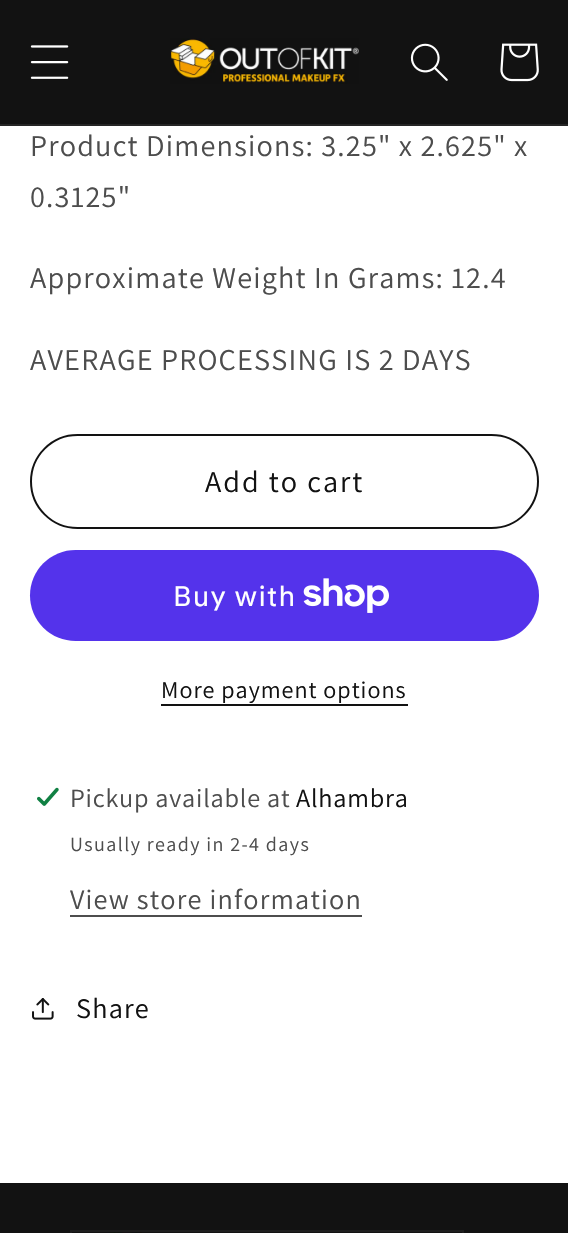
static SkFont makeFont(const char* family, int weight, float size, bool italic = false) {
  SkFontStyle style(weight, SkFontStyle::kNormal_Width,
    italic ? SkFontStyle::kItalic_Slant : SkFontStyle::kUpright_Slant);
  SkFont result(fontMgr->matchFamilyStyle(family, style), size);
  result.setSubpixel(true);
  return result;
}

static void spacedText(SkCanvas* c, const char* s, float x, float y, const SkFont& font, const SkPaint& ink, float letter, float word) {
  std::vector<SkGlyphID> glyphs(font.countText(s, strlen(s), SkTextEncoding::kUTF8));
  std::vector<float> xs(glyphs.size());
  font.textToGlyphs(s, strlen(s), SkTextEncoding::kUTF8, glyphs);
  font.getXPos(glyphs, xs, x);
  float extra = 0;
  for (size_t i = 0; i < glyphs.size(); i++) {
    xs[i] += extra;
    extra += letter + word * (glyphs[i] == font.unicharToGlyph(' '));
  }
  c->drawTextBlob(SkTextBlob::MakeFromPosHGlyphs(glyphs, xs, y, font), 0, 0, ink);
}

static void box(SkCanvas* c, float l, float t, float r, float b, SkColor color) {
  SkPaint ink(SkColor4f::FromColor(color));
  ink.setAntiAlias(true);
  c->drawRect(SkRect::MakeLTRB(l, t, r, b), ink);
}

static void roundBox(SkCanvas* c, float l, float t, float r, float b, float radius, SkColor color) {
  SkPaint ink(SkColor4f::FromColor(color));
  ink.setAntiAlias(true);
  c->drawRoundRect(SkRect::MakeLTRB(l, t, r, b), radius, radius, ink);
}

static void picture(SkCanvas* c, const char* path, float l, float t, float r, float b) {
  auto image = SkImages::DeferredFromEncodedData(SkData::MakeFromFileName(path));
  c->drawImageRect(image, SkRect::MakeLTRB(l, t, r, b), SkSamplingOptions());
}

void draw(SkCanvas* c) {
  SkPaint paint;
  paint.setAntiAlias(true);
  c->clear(0xffffffff);
  box(c, 0, 0, 568, 124, 0xff121212);
  box(c, 0, 124, 568, 126, 0xff252525);
  picture(c, "img_01.png", 30, 45, 69, 79);
  picture(c, "img_02.png", 170, 38, 359, 84);
  picture(c, "img_03.png", 410, 43, 448, 81);
  picture(c, "img_04.png", 500, 43, 539, 82);
  SkFont face1 = makeFont("Assistant", 400, 30.25f);
  paint.setColor(0xff4d4d4d);
  spacedText(c, "Product Dimensions: 3.25\" x 2.625\" x", 30, 156, face1, paint, 1.2f, 0);
  spacedText(c, "0.3125\"", 30, 207, face1, paint, 1.2f, 0);
  spacedText(c, "Approximate Weight In Grams: 12.4", 30, 288, face1, paint, 1.2f, 0);
  spacedText(c, "AVERAGE PROCESSING IS 2 DAYS", 30, 370, face1, paint, 1.2f, 0);
  paint.setStyle(SkPaint::kStroke_Style);
  paint.setStrokeWidth(2);
  paint.setColor(0xff121212);
  c->drawRoundRect(SkRect::MakeLTRB(31, 435, 538, 528), 46.5f, 46.5f, paint);
  paint.setStyle(SkPaint::kFill_Style);
  spacedText(c, "Add to cart", 205, 492, face1, paint, 2, 0);
  roundBox(c, 30, 550, 539, 641, 45.5f, 0xff5433eb);
  SkFont face2 = makeFont("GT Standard", 400, 28);
  paint.setColor(0xffffffff);
  spacedText(c, "Buy with", 173, 606, face2, paint, 1.2f, 0);
  picture(c, "img_05.png", 303, 578, 389, 613);
  SkFont face3 = makeFont("Assistant", 400, 24.1f);
  paint.setColor(0xff121212);
  spacedText(c, "More payment options", 161, 698, face3, paint, 1, 0);
  box(c, 161, 704, 408, 706, 0xff121212);
  picture(c, "img_06.png", 37, 787, 59, 806);
  SkFont face4 = makeFont("Assistant", 400, 26.25f);
  paint.setColor(0xff4d4d4d);
  spacedText(c, "Pickup available at", 70, 807, face4, paint, 0.8f, 0);
  paint.setColor(0xff121212);
  spacedText(c, "Alhambra", 296, 807, face4, paint, 0.8f, 0);
  SkFont face5 = makeFont("Assistant", 400, 20.1f);
  paint.setColor(0xff4d4d4d);
  spacedText(c, "Usually ready in 2-4 days", 70, 851, face5, paint, 1.4f, 0);
  SkFont face6 = makeFont("Assistant", 400, 28.25f);
  spacedText(c, "View store information", 70, 909, face6, paint, 1.2f, 0);
  box(c, 70, 915, 362, 917, 0xff4d4d4d);
  picture(c, "img_07.png", 32, 998, 54, 1020);
  paint.setColor(0xff121212);
  spacedText(c, "Share", 76, 1018, face6, paint, 1.2f, 0);
  box(c, 0, 1183, 568, 1233, 0xff121212);
  paint.setStyle(SkPaint::kStroke_Style);
  paint.setColor(0xff1e1e1e);
  c->drawRect(SkRect::MakeLTRB(71, 1231, 463, 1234), paint);
  picture(c, "img_08.png", 107, 1232, 142, 1233);
}
